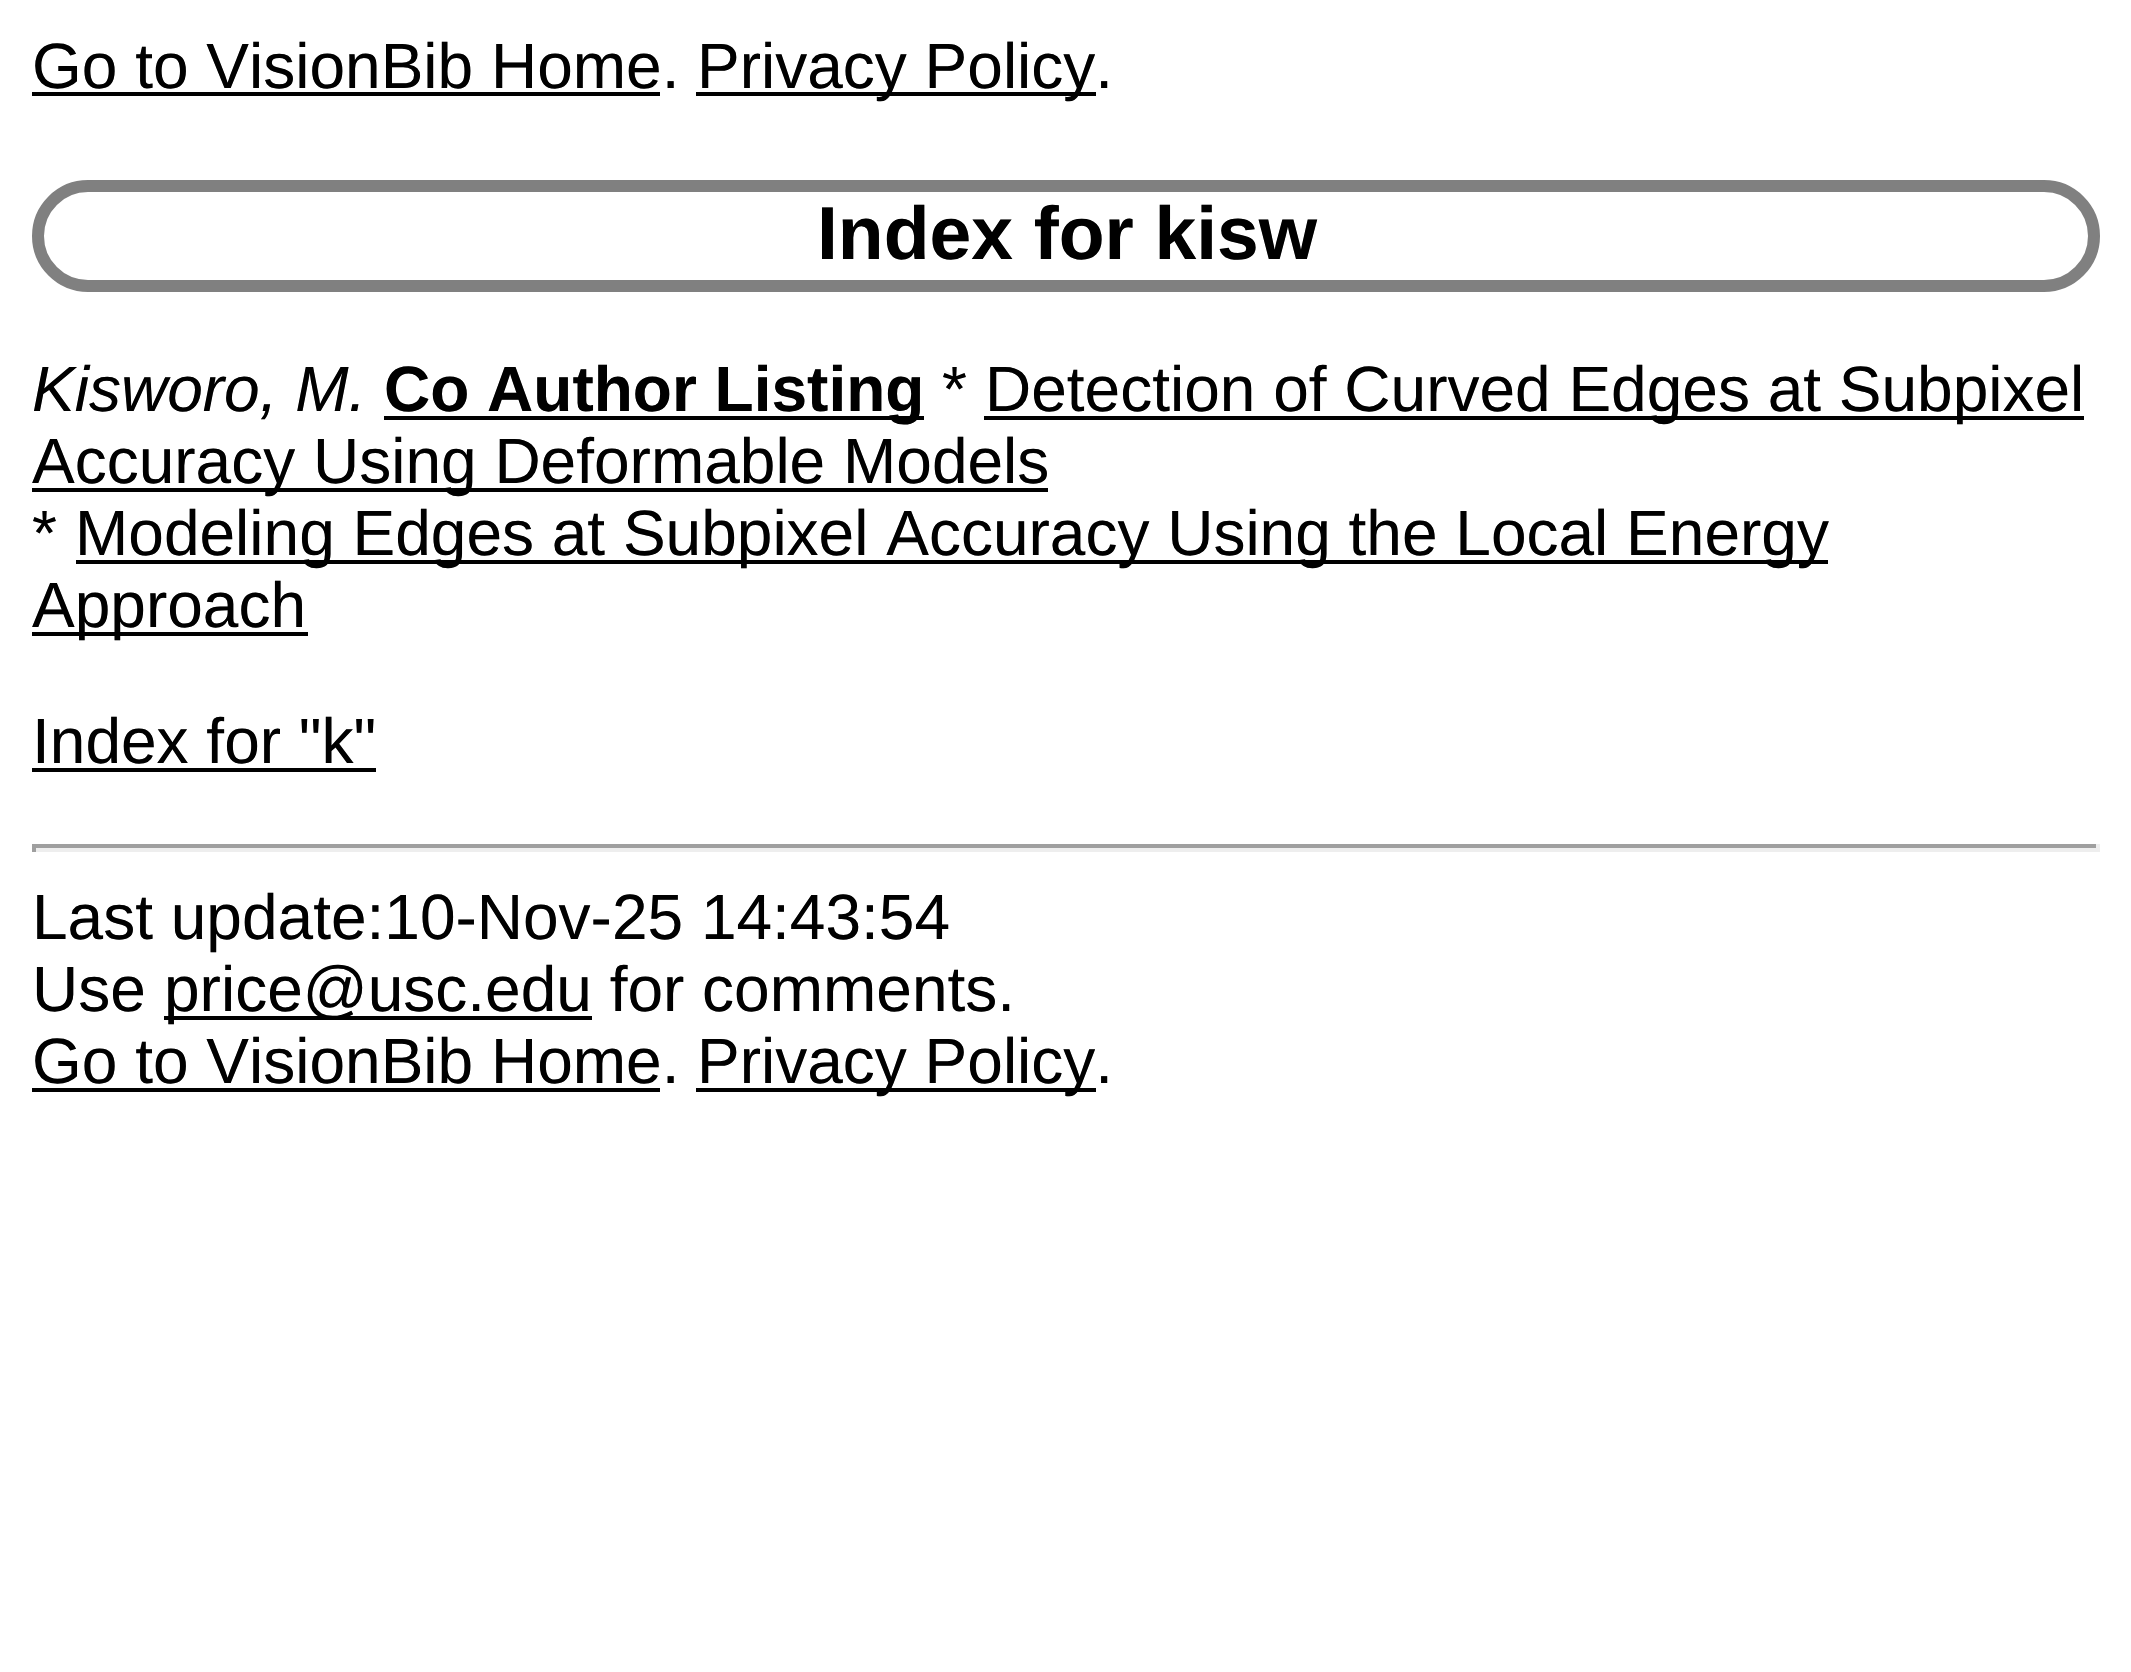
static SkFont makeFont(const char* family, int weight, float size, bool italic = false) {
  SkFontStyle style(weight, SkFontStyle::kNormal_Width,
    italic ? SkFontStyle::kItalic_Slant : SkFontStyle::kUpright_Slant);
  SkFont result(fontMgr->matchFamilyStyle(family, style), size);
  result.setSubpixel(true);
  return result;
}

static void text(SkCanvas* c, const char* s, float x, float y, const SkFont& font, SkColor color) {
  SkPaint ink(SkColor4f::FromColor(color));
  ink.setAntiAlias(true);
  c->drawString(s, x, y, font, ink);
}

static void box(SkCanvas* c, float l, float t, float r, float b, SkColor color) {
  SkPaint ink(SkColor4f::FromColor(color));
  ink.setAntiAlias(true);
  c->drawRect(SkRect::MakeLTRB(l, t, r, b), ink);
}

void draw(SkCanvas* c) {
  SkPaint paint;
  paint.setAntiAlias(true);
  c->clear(0xffffffff);
  SkFont face1 = makeFont("Liberation Sans", 400, 64);
  text(c, "Go to VisionBib Home.", 32, 88, face1, 0xff000000);
  box(c, 32, 92, 660, 96, 0xff000000);
  box(c, 696, 92, 1096, 96, 0xff000000);
  text(c, "Privacy Policy.", 697, 88, face1, 0xff000000);
  paint.setStyle(SkPaint::kStroke_Style);
  paint.setStrokeWidth(12);
  paint.setColor(0xff808080);
  c->drawRoundRect(SkRect::MakeLTRB(38, 186, 2094, 286), 50, 50, paint);
  SkFont face2 = makeFont("Liberation Sans", 700, 75);
  text(c, "Index for kisw", 817, 259, face2, 0xff000000);
  SkFont face3 = makeFont("Liberation Sans", 400, 64, true);
  text(c, "Kisworo, M.", 32, 411, face3, 0xff000000);
  box(c, 384, 416, 924, 420, 0xff000000);
  SkFont face4 = makeFont("Liberation Sans", 700, 64);
  text(c, "Co Author Listing", 384, 411, face4, 0xff000000);
  text(c, "*", 942, 411, face1, 0xff000000);
  box(c, 984, 416, 2084, 420, 0xff000000);
  text(c, "Detection of Curved Edges at Subpixel", 985, 411, face1, 0xff000000);
  box(c, 32, 488, 1048, 492, 0xff000000);
  text(c, "Accuracy Using Deformable Models", 32, 483, face1, 0xff000000);
  text(c, "*", 32, 555, face1, 0xff000000);
  box(c, 76, 560, 1828, 564, 0xff000000);
  text(c, "Modeling Edges at Subpixel Accuracy Using the Local Energy", 75, 555, face1, 0xff000000);
  box(c, 32, 632, 308, 636, 0xff000000);
  text(c, "Approach", 32, 627, face1, 0xff000000);
  text(c, "Index for \"k\"", 32, 763, face1, 0xff000000);
  box(c, 32, 768, 376, 772, 0xff000000);
  box(c, 32, 844, 2100, 848, 0xff9f9f9f);
  box(c, 2096, 844, 2100, 852, 0xffeeeeee);
  box(c, 32, 848, 2100, 852, 0xffeeeeee);
  box(c, 32, 844, 36, 852, 0xff9f9f9f);
  text(c, "Last update:10-Nov-25 14:43:54", 32, 939, face1, 0xff000000);
  text(c, "Use", 32, 1011, face1, 0xff000000);
  box(c, 164, 1016, 592, 1020, 0xff000000);
  text(c, "price@usc.edu for comments.", 164, 1011, face1, 0xff000000);
  text(c, "Go to VisionBib Home.", 32, 1083, face1, 0xff000000);
  box(c, 32, 1088, 660, 1092, 0xff000000);
  box(c, 696, 1088, 1096, 1092, 0xff000000);
  text(c, "Privacy Policy.", 697, 1083, face1, 0xff000000);
}
